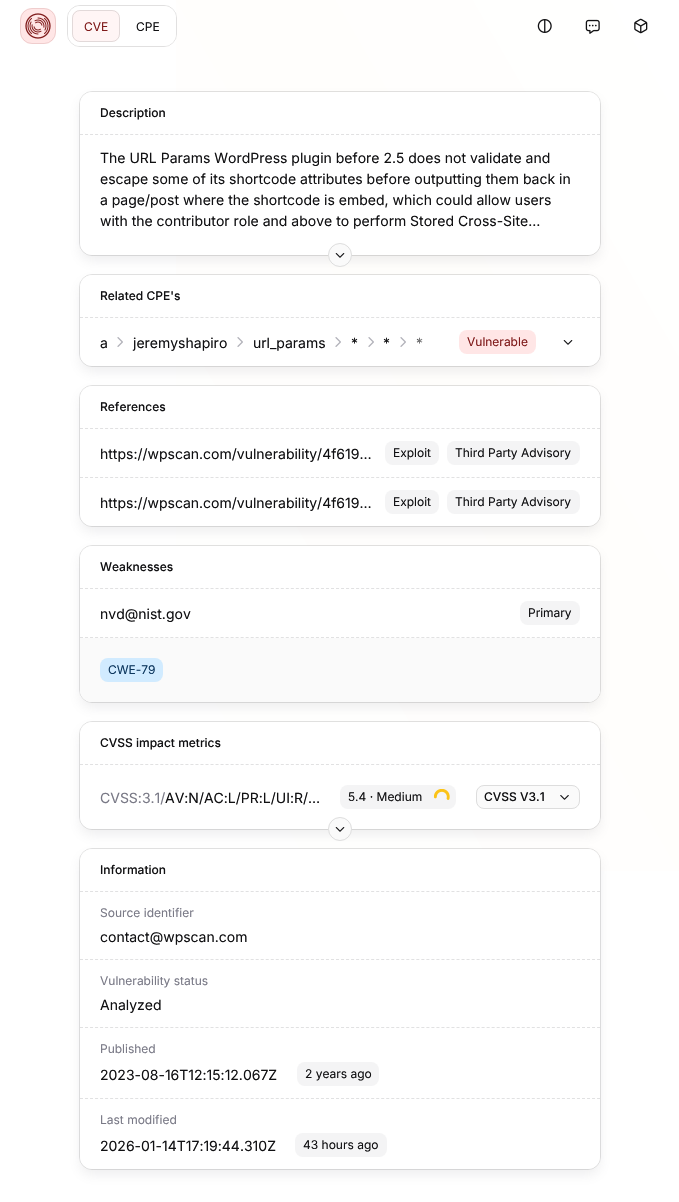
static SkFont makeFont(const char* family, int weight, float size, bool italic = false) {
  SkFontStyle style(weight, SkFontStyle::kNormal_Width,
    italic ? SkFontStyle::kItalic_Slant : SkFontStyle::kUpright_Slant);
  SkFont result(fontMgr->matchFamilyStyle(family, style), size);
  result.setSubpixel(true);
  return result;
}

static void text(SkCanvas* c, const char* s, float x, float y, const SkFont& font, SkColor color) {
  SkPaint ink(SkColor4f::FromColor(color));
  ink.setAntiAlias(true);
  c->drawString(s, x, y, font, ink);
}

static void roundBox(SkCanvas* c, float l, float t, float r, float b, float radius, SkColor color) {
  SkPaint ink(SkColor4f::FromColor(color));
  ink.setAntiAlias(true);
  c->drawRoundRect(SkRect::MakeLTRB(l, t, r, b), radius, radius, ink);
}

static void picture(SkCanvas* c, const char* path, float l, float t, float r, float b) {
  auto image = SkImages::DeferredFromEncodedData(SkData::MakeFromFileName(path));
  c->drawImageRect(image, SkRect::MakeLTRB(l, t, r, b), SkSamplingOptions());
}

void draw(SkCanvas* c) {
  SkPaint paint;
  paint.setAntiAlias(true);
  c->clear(0xffffffff);
  {
    const SkColor colors[] = {0xffffffff, 0xffffffff, 0xfffffefc, 0xffffffff};
    const float stops[] = {0, 0.3f, 0.7f, 1};
    const SkPoint ends[] = {{-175, 898}, {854, 304}};
    paint.setShader(SkGradientShader::MakeLinear(ends, colors, stops, 4, SkTileMode::kClamp));
    paint.setAlpha(255);
  }
  c->drawRect(SkRect::MakeLTRB(176, 0, 679, 871), paint);
  roundBox(c, 20, 8, 56, 44, 12, 0xffffe6e6);
  paint.setStyle(SkPaint::kStroke_Style);
  paint.setStrokeWidth(1);
  paint.setShader(nullptr);
  paint.setColor(0x1f7f1a1a);
  c->drawRoundRect(SkRect::MakeLTRB(20.5f, 8.5f, 55.5f, 43.5f), 11.5f, 11.5f, paint);
  picture(c, "img_01.png", 25, 13, 51, 39);
  paint.setColor(0xffe1e0e0);
  c->drawRoundRect(SkRect::MakeLTRB(67.5f, 5.5f, 176.5f, 46.5f), 12.5f, 12.5f, paint);
  roundBox(c, 68, 6, 176, 46, 12, 0xffffffff);
  roundBox(c, 72, 10, 120, 42, 8, 0xfffff5f5);
  paint.setColor(0x1f111113);
  c->drawRoundRect(SkRect::MakeLTRB(72.5f, 10.5f, 119.5f, 41.5f), 7.5f, 7.5f, paint);
  SkFont face1 = makeFont("Inter", 400, 12);
  text(c, "CVE", 84, 31, face1, 0xff7f1a1a);
  text(c, "CPE", 136, 31, face1, 0xff111113);
  picture(c, "img_02.png", 537, 19, 552, 33);
  picture(c, "img_03.png", 585, 19, 600, 34);
  picture(c, "img_04.png", 634, 18, 648, 34);
  paint.setStyle(SkPaint::kFill_Style);
  paint.setColor(0x1f797986);
  paint.setMaskFilter(SkMaskFilter::MakeBlur(kNormal_SkBlurStyle, 6));
  c->drawRoundRect(SkRect::MakeLTRB(80, 98, 600, 261), 12, 12, paint);
  paint.setMaskFilter(nullptr);
  paint.setStyle(SkPaint::kStroke_Style);
  paint.setColor(0x1f111113);
  c->drawRoundRect(SkRect::MakeLTRB(79.5f, 91.5f, 600.5f, 255.5f), 12.5f, 12.5f, paint);
  roundBox(c, 80, 92, 600, 255, 12, 0xffffffff);
  SkFont face2 = makeFont("Inter", 500, 12);
  text(c, "Description", 100, 117, face2, 0xff111113);
  paint.setColor(0xffe1e1e2);
  paint.setPathEffect(SkDashPathEffect::Make({{3, 2.02f}}, 0));
  c->drawPath(SkPathBuilder().moveTo(80, 134.5f).lineTo(600, 134.5f).detach(), paint);
  paint.setPathEffect(nullptr);
  SkFont face3 = makeFont("Inter", 400, 14);
  text(c, "The URL Params WordPress plugin before 2.5 does not validate and", 100, 163, face3, 0xff111113);
  text(c, "escape some of its shortcode attributes before outputting them back in", 100, 184, face3, 0xff111113);
  text(c, "a page/post where the shortcode is embed, which could allow users", 100, 205, face3, 0xff111113);
  text(c, "with the contributor role and above to perform Stored Cross-Site…", 100, 226, face3, 0xff111113);
  paint.setStyle(SkPaint::kFill_Style);
  paint.setColor(0x1f797986);
  paint.setMaskFilter(SkMaskFilter::MakeBlur(kNormal_SkBlurStyle, 6));
  c->drawRoundRect(SkRect::MakeLTRB(80, 281, 600, 372), 12, 12, paint);
  paint.setMaskFilter(nullptr);
  paint.setColor(0xfffafafa);
  c->drawCircle(340, 255, 12, paint);
  paint.setStyle(SkPaint::kStroke_Style);
  paint.setColor(0x1f111113);
  c->drawCircle(340, 255, 11.5f, paint);
  picture(c, "img_05.png", 335, 253, 345, 258);
  c->drawRoundRect(SkRect::MakeLTRB(79.5f, 274.5f, 600.5f, 366.5f), 12.5f, 12.5f, paint);
  roundBox(c, 80, 275, 600, 366, 12, 0xffffffff);
  text(c, "Related CPE's", 100, 300, face2, 0xff111113);
  paint.setColor(0xffe1e1e2);
  paint.setPathEffect(SkDashPathEffect::Make({{3, 2.02f}}, 0));
  c->drawPath(SkPathBuilder().moveTo(80, 317.5f).lineTo(600, 317.5f).detach(), paint);
  paint.setPathEffect(nullptr);
  text(c, "a", 100, 348, face3, 0xff111113);
  picture(c, "img_06.png", 117, 337, 123, 347);
  text(c, "jeremyshapiro", 133, 348, face3, 0xff111113);
  picture(c, "img_06.png", 237, 337, 243, 347);
  text(c, "url_params", 253, 348, face3, 0xff111113);
  picture(c, "img_06.png", 335, 337, 341, 347);
  text(c, "*", 351, 348, face3, 0xff111113);
  picture(c, "img_06.png", 368, 337, 374, 347);
  text(c, "*", 383, 348, face3, 0xff111113);
  picture(c, "img_06.png", 400, 337, 406, 347);
  text(c, "*", 416, 348, face3, 0xff111113);
  paint.setStyle(SkPaint::kFill_Style);
  {
    const SkColor colors[] = {0x00ffffff, 0xffffffff};
    const float stops[] = {0, 0.8f};
    const SkPoint ends[] = {{411, 343}, {439, 343}};
    paint.setShader(SkGradientShader::MakeLinear(ends, colors, stops, 2, SkTileMode::kClamp));
    paint.setAlpha(255);
  }
  c->drawRect(SkRect::MakeLTRB(416, 337, 422, 344), paint);
  roundBox(c, 459, 330, 536, 354, 8, 0xffffe6e6);
  text(c, "Vulnerable", 467, 346, face1, 0xff7f1a1a);
  picture(c, "img_07.png", 563, 340, 573, 345);
  paint.setShader(nullptr);
  paint.setColor(0x1f797986);
  paint.setMaskFilter(SkMaskFilter::MakeBlur(kNormal_SkBlurStyle, 6));
  c->drawRoundRect(SkRect::MakeLTRB(80, 392, 600, 532), 12, 12, paint);
  paint.setMaskFilter(nullptr);
  paint.setStyle(SkPaint::kStroke_Style);
  paint.setColor(0x1f111113);
  c->drawRoundRect(SkRect::MakeLTRB(79.5f, 385.5f, 600.5f, 526.5f), 12.5f, 12.5f, paint);
  roundBox(c, 80, 386, 600, 526, 12, 0xffffffff);
  text(c, "References", 100, 411, face2, 0xff111113);
  paint.setColor(0xffe1e1e2);
  paint.setPathEffect(SkDashPathEffect::Make({{3, 2.02f}}, 0));
  c->drawPath(SkPathBuilder().moveTo(80, 428.5f).lineTo(600, 428.5f).detach(), paint);
  paint.setPathEffect(nullptr);
  text(c, "https://wpscan.com/vulnerability/4f619…", 100, 459, face3, 0xff111113);
  roundBox(c, 385, 441, 439, 465, 8, 0xfff4f4f5);
  text(c, "Exploit", 393, 457, face1, 0xff111113);
  roundBox(c, 447, 441, 580, 465, 8, 0xfff4f4f5);
  text(c, "Third Party Advisory", 455, 457, face1, 0xff111113);
  paint.setPathEffect(SkDashPathEffect::Make({{3, 2.02f}}, 0));
  c->drawPath(SkPathBuilder().moveTo(80, 477.5f).lineTo(600, 477.5f).detach(), paint);
  paint.setPathEffect(nullptr);
  text(c, "https://wpscan.com/vulnerability/4f619…", 100, 508, face3, 0xff111113);
  roundBox(c, 385, 490, 439, 514, 8, 0xfff4f4f5);
  text(c, "Exploit", 393, 506, face1, 0xff111113);
  roundBox(c, 447, 490, 580, 514, 8, 0xfff4f4f5);
  text(c, "Third Party Advisory", 455, 506, face1, 0xff111113);
  paint.setStyle(SkPaint::kFill_Style);
  paint.setColor(0x1f797986);
  paint.setMaskFilter(SkMaskFilter::MakeBlur(kNormal_SkBlurStyle, 6));
  c->drawRoundRect(SkRect::MakeLTRB(80, 552, 600, 708), 12, 12, paint);
  paint.setMaskFilter(nullptr);
  paint.setStyle(SkPaint::kStroke_Style);
  paint.setColor(0x1f111113);
  c->drawRoundRect(SkRect::MakeLTRB(79.5f, 545.5f, 600.5f, 702.5f), 12.5f, 12.5f, paint);
  roundBox(c, 80, 546, 600, 702, 12, 0xffffffff);
  text(c, "Weaknesses", 100, 571, face2, 0xff111113);
  paint.setColor(0xffe1e1e2);
  paint.setPathEffect(SkDashPathEffect::Make({{3, 2.02f}}, 0));
  c->drawPath(SkPathBuilder().moveTo(80, 588.5f).lineTo(600, 588.5f).detach(), paint);
  paint.setPathEffect(nullptr);
  text(c, "nvd@nist.gov", 100, 619, face3, 0xff111113);
  roundBox(c, 520, 601, 580, 625, 8, 0xfff4f4f5);
  text(c, "Primary", 528, 617, face1, 0xff111113);
  paint.setPathEffect(SkDashPathEffect::Make({{3, 2.02f}}, 0));
  c->drawPath(SkPathBuilder().moveTo(80, 637.5f).lineTo(600, 637.5f).detach(), paint);
  paint.setPathEffect(nullptr);
  paint.setStyle(SkPaint::kFill_Style);
  paint.setColor(0xfffafafa);
  c->drawPath(SkPathBuilder().moveTo(80, 638).lineTo(600, 638).lineTo(600, 690).cubicTo(600, 696.5f, 594.5f, 702, 588, 702).lineTo(92, 702).cubicTo(85.5f, 702, 80, 696.5f, 80, 690).close().detach(), paint);
  roundBox(c, 100, 658, 163, 682, 8, 0xffd1ebff);
  text(c, "CWE-79", 108, 674, face1, 0xff0d375e);
  paint.setColor(0x1f797986);
  paint.setMaskFilter(SkMaskFilter::MakeBlur(kNormal_SkBlurStyle, 6));
  c->drawRoundRect(SkRect::MakeLTRB(80, 728, 600, 835), 12, 12, paint);
  paint.setMaskFilter(nullptr);
  paint.setStyle(SkPaint::kStroke_Style);
  paint.setColor(0x1f111113);
  c->drawRoundRect(SkRect::MakeLTRB(79.5f, 721.5f, 600.5f, 829.5f), 12.5f, 12.5f, paint);
  roundBox(c, 80, 722, 600, 829, 12, 0xffffffff);
  text(c, "CVSS impact metrics", 100, 747, face2, 0xff111113);
  paint.setColor(0xffe1e1e2);
  paint.setPathEffect(SkDashPathEffect::Make({{3, 2.02f}}, 0));
  c->drawPath(SkPathBuilder().moveTo(80, 764.5f).lineTo(600, 764.5f).detach(), paint);
  paint.setPathEffect(nullptr);
  text(c, "CVSS:3.1/", 100, 803, face3, 0xff797986);
  text(c, "AV:N/AC:L/PR:L/UI:R/…", 165, 803, face3, 0xff111113);
  roundBox(c, 340, 785, 456, 809, 8, 0xfff4f4f5);
  text(c, "5.4 · Medium", 348, 801, face1, 0xff111113);
  picture(c, "img_08.png", 433, 789, 450, 800);
  paint.setStyle(SkPaint::kFill_Style);
  paint.setColor(0xfffafafa);
  c->drawRoundRect(SkRect::MakeLTRB(476.5f, 785.5f, 579.5f, 808.5f), 7.5f, 7.5f, paint);
  paint.setStyle(SkPaint::kStroke_Style);
  paint.setColor(0xffdddddd);
  c->drawRoundRect(SkRect::MakeLTRB(476.5f, 785.5f, 579.5f, 808.5f), 7.5f, 7.5f, paint);
  text(c, "CVSS V3.1", 484, 801, face2, 0xff111113);
  picture(c, "img_09.png", 560, 795, 569, 800);
  paint.setStyle(SkPaint::kFill_Style);
  paint.setColor(0x1f797986);
  paint.setMaskFilter(SkMaskFilter::MakeBlur(kNormal_SkBlurStyle, 6));
  c->drawRoundRect(SkRect::MakeLTRB(80, 855, 600, 1175), 12, 12, paint);
  paint.setMaskFilter(nullptr);
  paint.setColor(0xfffafafa);
  c->drawCircle(340, 829, 12, paint);
  paint.setStyle(SkPaint::kStroke_Style);
  paint.setColor(0x1f111113);
  c->drawCircle(340, 829, 11.5f, paint);
  picture(c, "img_05.png", 335, 827, 345, 832);
  c->drawRoundRect(SkRect::MakeLTRB(79.5f, 848.5f, 600.5f, 1169.5f), 12.5f, 12.5f, paint);
  roundBox(c, 80, 849, 600, 1169, 12, 0xffffffff);
  text(c, "Information", 100, 874, face2, 0xff111113);
  paint.setColor(0xffe1e1e2);
  paint.setPathEffect(SkDashPathEffect::Make({{3, 2.02f}}, 0));
  c->drawPath(SkPathBuilder().moveTo(80, 891.5f).lineTo(600, 891.5f).detach(), paint);
  paint.setPathEffect(nullptr);
  text(c, "Source identifier", 100, 917, face1, 0xff797986);
  text(c, "contact@wpscan.com", 100, 942, face3, 0xff111113);
  paint.setPathEffect(SkDashPathEffect::Make({{3, 2.02f}}, 0));
  c->drawPath(SkPathBuilder().moveTo(80, 959.5f).lineTo(600, 959.5f).detach(), paint);
  paint.setPathEffect(nullptr);
  text(c, "Vulnerability status", 100, 985, face1, 0xff797986);
  text(c, "Analyzed", 100, 1010, face3, 0xff111113);
  paint.setPathEffect(SkDashPathEffect::Make({{3, 2.02f}}, 0));
  c->drawPath(SkPathBuilder().moveTo(80, 1027.5f).lineTo(600, 1027.5f).detach(), paint);
  paint.setPathEffect(nullptr);
  text(c, "Published", 100, 1053, face1, 0xff797986);
  text(c, "2023-08-16T12:15:12.067Z", 100, 1080, face3, 0xff111113);
  roundBox(c, 297, 1062, 379, 1086, 8, 0xfff4f4f5);
  text(c, "2 years ago", 305, 1078, face1, 0xff111113);
  paint.setPathEffect(SkDashPathEffect::Make({{3, 2.02f}}, 0));
  c->drawPath(SkPathBuilder().moveTo(80, 1098.5f).lineTo(600, 1098.5f).detach(), paint);
  paint.setPathEffect(nullptr);
  text(c, "Last modified", 100, 1124, face1, 0xff797986);
  text(c, "2026-01-14T17:19:44.310Z", 100, 1151, face3, 0xff111113);
  roundBox(c, 295, 1133, 387, 1157, 8, 0xfff4f4f5);
  text(c, "43 hours ago", 303, 1149, face1, 0xff111113);
}
